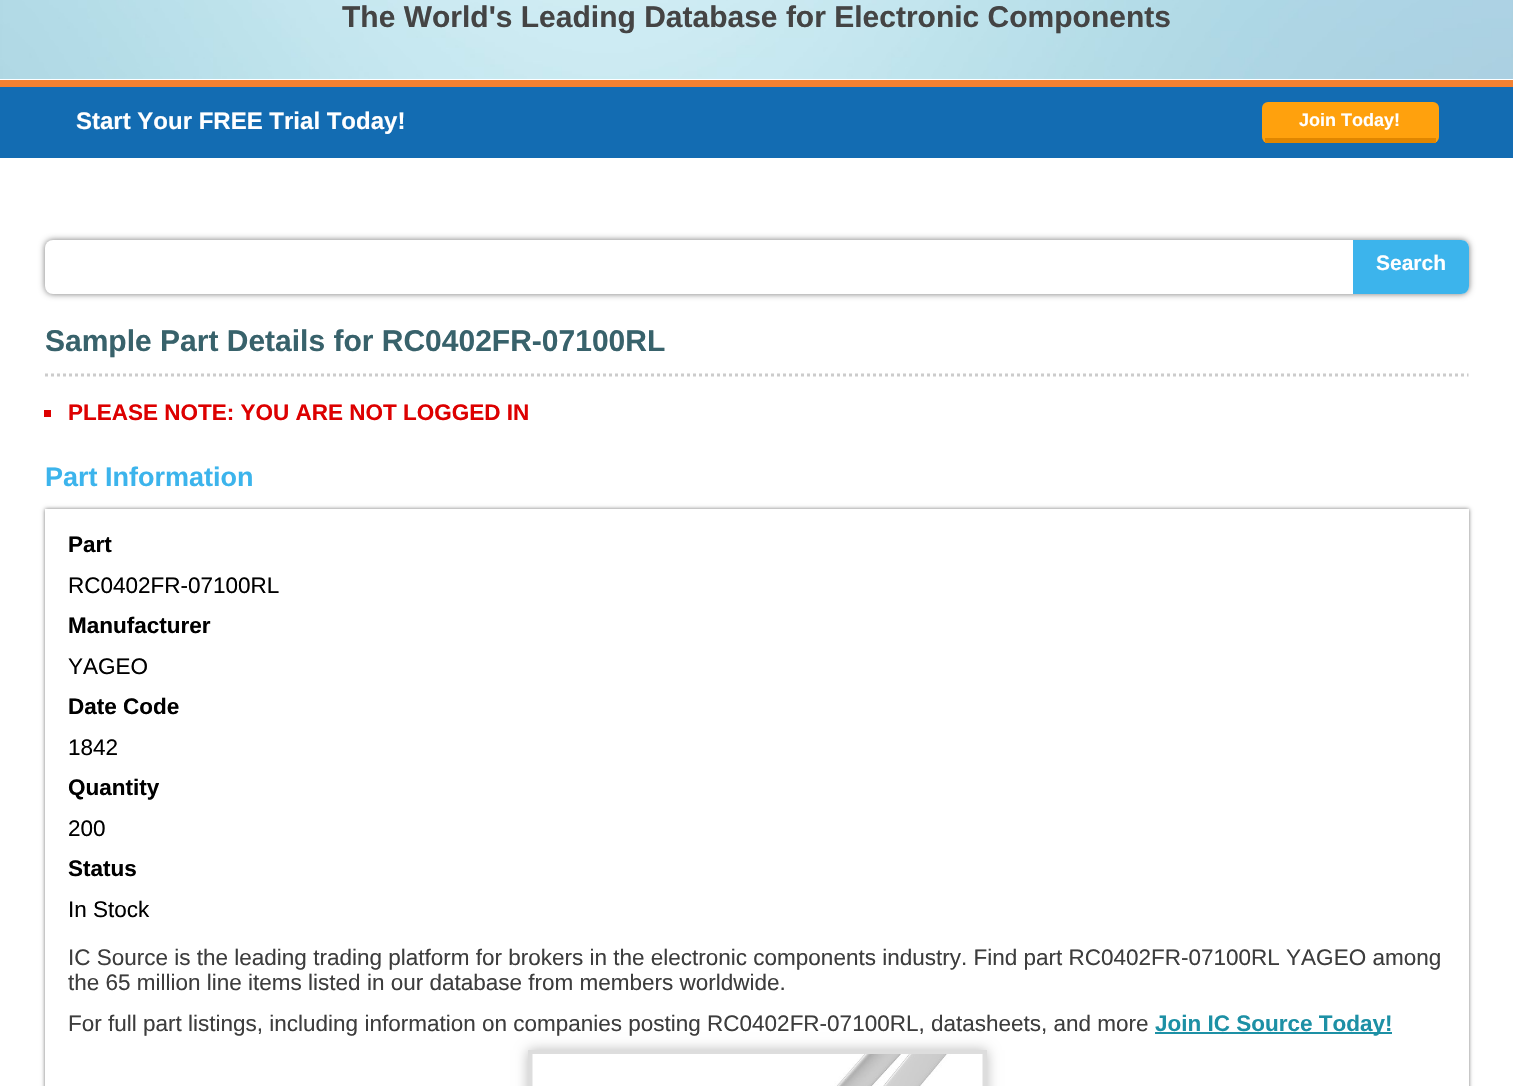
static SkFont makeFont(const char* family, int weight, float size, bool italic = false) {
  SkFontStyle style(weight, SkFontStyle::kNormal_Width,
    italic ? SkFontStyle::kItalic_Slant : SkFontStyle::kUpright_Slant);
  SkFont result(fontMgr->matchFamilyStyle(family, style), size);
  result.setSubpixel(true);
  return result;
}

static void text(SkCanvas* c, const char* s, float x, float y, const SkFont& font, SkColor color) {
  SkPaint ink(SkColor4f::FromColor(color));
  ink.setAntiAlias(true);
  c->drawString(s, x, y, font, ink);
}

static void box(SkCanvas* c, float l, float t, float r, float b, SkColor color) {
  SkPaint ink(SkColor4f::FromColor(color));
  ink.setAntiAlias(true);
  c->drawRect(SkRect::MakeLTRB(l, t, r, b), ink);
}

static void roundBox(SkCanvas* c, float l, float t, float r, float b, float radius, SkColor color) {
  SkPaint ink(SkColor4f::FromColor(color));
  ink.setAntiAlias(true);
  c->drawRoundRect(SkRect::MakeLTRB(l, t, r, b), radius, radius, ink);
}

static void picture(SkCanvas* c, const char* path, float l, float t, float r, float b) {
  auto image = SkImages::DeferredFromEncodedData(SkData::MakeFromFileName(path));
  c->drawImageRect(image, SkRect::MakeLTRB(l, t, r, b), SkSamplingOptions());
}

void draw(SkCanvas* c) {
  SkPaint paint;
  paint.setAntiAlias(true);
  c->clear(0xffffffff);
  picture(c, "img_01.png", 0, 0, 1513, 79);
  SkFont face1 = makeFont("Liberation Sans", 700, 30);
  text(c, "The World's Leading Database for Electronic Components", 342, 27, face1, 0xff444444);
  box(c, 0, 87, 1513, 158, 0xff136cb2);
  box(c, 0, 80, 1513, 87, 0xfff38131);
  SkFont face2 = makeFont("Liberation Sans", 700, 24);
  text(c, "Start Your FREE Trial Today!", 76, 129, face2, 0xffffffff);
  roundBox(c, 1262, 102, 1439, 143, 6, 0xffffa10d);
  box(c, 1265, 138, 1436, 143, 0xffe08600);
  SkFont face3 = makeFont("Liberation Sans", 700, 18);
  text(c, "Join Today!", 1299, 126, face3, 0xffffffff);
  paint.setColor(0xff777777);
  paint.setMaskFilter(SkMaskFilter::MakeBlur(kNormal_SkBlurStyle, 3));
  c->drawRoundRect(SkRect::MakeLTRB(45, 240, 1469, 294), 8, 8, paint);
  paint.setMaskFilter(nullptr);
  roundBox(c, 45, 240, 1469, 294, 8, 0xffffffff);
  paint.setColor(0xff3cb4ec);
  c->drawPath(SkPathBuilder().moveTo(1353, 240).lineTo(1461, 240).cubicTo(1465.5f, 240, 1469, 243.5f, 1469, 248).lineTo(1469, 286).cubicTo(1469, 290.5f, 1465.5f, 294, 1461, 294).lineTo(1353, 294).close().detach(), paint);
  SkFont face4 = makeFont("Liberation Sans", 700, 21);
  text(c, "Search", 1376, 270, face4, 0xffffffff);
  paint.setStyle(SkPaint::kStroke_Style);
  paint.setStrokeWidth(3);
  paint.setColor(0xffcccccc);
  paint.setPathEffect(SkDashPathEffect::Make({{3, 3}}, 0));
  c->drawPath(SkPathBuilder().moveTo(45, 375).lineTo(1468.5f, 375).detach(), paint);
  paint.setPathEffect(nullptr);
  text(c, "Sample Part Details for RC0402FR-07100RL", 45, 351, face1, 0xff38626b);
  box(c, 44, 410, 51, 417, 0xffdd0000);
  SkFont face5 = makeFont("Liberation Sans", 700, 22.5f);
  text(c, "PLEASE NOTE: YOU ARE NOT LOGGED IN", 68, 420, face5, 0xffdd0000);
  SkFont face6 = makeFont("Liberation Sans", 700, 27);
  text(c, "Part Information", 45, 486, face6, 0xff3cb4ec);
  c->save();
  c->clipPath(SkPathBuilder(SkPathFillType::kEvenOdd).moveTo(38, 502).lineTo(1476, 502).lineTo(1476, 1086).lineTo(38, 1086).close().moveTo(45, 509).lineTo(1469, 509).lineTo(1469, 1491).lineTo(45, 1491).close().detach(), true);
  paint.setStyle(SkPaint::kFill_Style);
  paint.setColor(0xff777777);
  paint.setMaskFilter(SkMaskFilter::MakeBlur(kNormal_SkBlurStyle, 2));
  c->drawRect(SkRect::MakeLTRB(45, 509, 1469, 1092), paint);
  paint.setMaskFilter(nullptr);
  c->restore();
  text(c, "Part", 68, 552, face5, 0xff000000);
  SkFont face7 = makeFont("Liberation Sans", 400, 22.5f);
  text(c, "RC0402FR-07100RL", 68, 593, face7, 0xff000000);
  text(c, "Manufacturer", 68, 633, face5, 0xff000000);
  text(c, "YAGEO", 68, 674, face7, 0xff000000);
  text(c, "Date Code", 68, 714, face5, 0xff000000);
  text(c, "1842", 68, 755, face7, 0xff000000);
  text(c, "Quantity", 68, 795, face5, 0xff000000);
  text(c, "200", 68, 836, face7, 0xff000000);
  text(c, "Status", 68, 876, face5, 0xff000000);
  text(c, "In Stock", 68, 917, face7, 0xff000000);
  text(c, "IC Source is the leading trading platform for brokers in the electronic components industry. Find part RC0402FR-07100RL YAGEO among", 68, 965, face7, 0xff3d3d3d);
  text(c, "the 65 million line items listed in our database from members worldwide.", 68, 990, face7, 0xff3d3d3d);
  text(c, "For full part listings, including information on companies posting RC0402FR-07100RL, datasheets, and more", 68, 1031, face7, 0xff3d3d3d);
  box(c, 1155, 1032, 1392, 1034, 0xff1d90a5);
  text(c, "Join IC Source Today!", 1155, 1031, face5, 0xff1d90a5);
  paint.setColor(0xffbbbbbb);
  paint.setMaskFilter(SkMaskFilter::MakeBlur(kNormal_SkBlurStyle, 6));
  c->drawRect(SkRect::MakeLTRB(528, 1050, 987, 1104), paint);
  paint.setMaskFilter(nullptr);
  paint.setStyle(SkPaint::kStroke_Style);
  paint.setStrokeWidth(5);
  paint.setColor(0xffdddddd);
  c->drawRect(SkRect::MakeLTRB(530.5f, 1052.5f, 984.5f, 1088.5f), paint);
  picture(c, "img_02.png", 532, 1054, 983, 1086);
}
